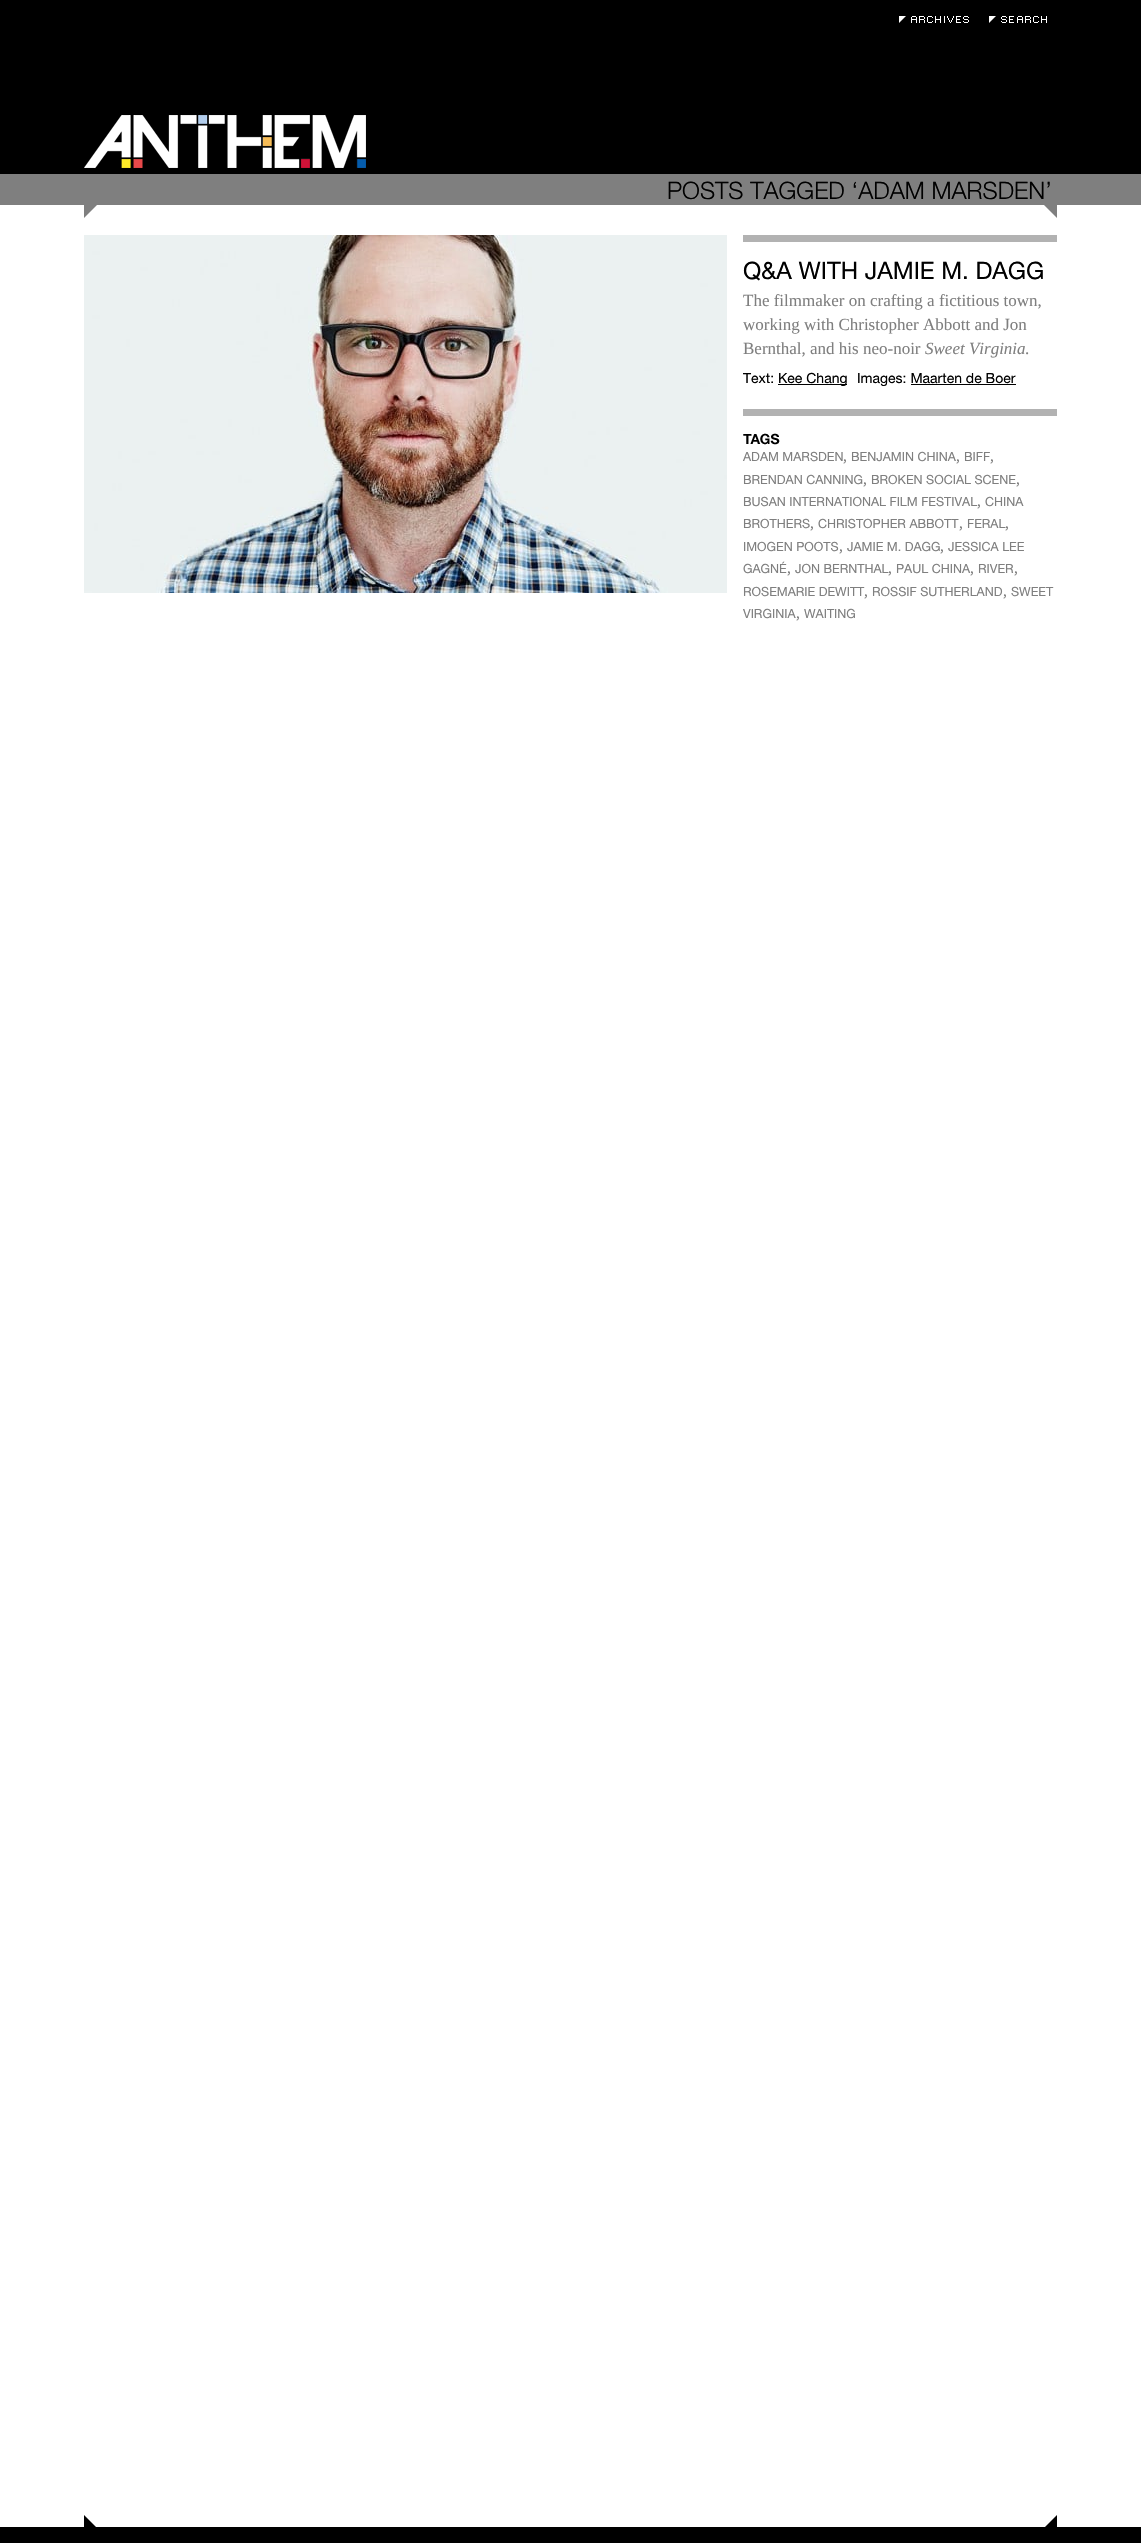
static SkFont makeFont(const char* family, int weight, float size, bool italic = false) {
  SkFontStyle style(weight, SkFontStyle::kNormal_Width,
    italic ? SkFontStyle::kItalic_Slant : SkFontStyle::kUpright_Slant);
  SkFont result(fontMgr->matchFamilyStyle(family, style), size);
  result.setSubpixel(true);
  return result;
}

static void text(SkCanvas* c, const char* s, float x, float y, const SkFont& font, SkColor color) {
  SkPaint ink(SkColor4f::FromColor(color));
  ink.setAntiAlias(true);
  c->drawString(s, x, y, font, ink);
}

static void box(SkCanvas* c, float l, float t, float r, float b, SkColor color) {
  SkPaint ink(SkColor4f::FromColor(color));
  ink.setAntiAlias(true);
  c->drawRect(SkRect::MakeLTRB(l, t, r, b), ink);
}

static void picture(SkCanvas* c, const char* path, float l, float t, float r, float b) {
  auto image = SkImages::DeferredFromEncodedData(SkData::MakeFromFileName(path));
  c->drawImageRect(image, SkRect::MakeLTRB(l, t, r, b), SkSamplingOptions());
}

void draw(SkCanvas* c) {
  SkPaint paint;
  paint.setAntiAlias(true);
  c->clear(0xffffffff);
  box(c, 0, 0, 1141, 174, 0xff000000);
  picture(c, "img_01.png", 899, 16, 969, 23);
  picture(c, "img_02.png", 989, 16, 1047, 23);
  picture(c, "img_03.png", 84, 115, 366, 168);
  box(c, 0, 174, 1141, 205, 0xff7f7f7f);
  picture(c, "img_04.png", 84, 205, 1057, 218);
  SkFont face1 = makeFont("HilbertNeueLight", 300, 24);
  text(c, "POSTS TAGGED ‘ADAM MARSDEN’", 667, 199, face1, 0xff000000);
  picture(c, "img_05.png", 84, 235, 727, 593);
  box(c, 743, 235, 1057, 242, 0xffb2b2b2);
  SkFont face2 = makeFont("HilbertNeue", 500, 24);
  text(c, "Q&A WITH JAMIE M. DAGG", 743, 279, face2, 0xff000000);
  SkFont face3 = makeFont("Liberation Serif", 400, 17);
  text(c, "The filmmaker on crafting a fictitious town,", 743, 306, face3, 0xff7f7f7f);
  text(c, "working with Christopher Abbott and Jon", 743, 330, face3, 0xff7f7f7f);
  text(c, "Bernthal, and his neo-noir", 743, 354, face3, 0xff7f7f7f);
  SkFont face4 = makeFont("Liberation Serif", 400, 17, true);
  text(c, "Sweet Virginia", 925, 354, face4, 0xff7f7f7f);
  text(c, ".", 1025, 354, face3, 0xff7f7f7f);
  SkFont face5 = makeFont("HilbertNeue", 500, 14);
  text(c, "Text:", 743, 383, face5, 0xff000000);
  box(c, 778, 384, 847, 385, 0xff000000);
  text(c, "Kee Chang", 778, 383, face5, 0xff000000);
  text(c, "Images: Maarten de Boer", 857, 383, face5, 0xff000000);
  box(c, 911, 384, 1016, 385, 0xff000000);
  box(c, 743, 409, 1057, 416, 0xffb2b2b2);
  picture(c, "img_06.png", 743, 433, 780, 445);
  SkFont face6 = makeFont("HilbertNeue", 500, 12.5f);
  text(c, "ADAM MARSDEN", 743, 461, face6, 0xff7f7f7f);
  text(c, "BENJAMIN CHINA", 851, 461, face6, 0xff7f7f7f);
  text(c, "BIFF", 964, 461, face6, 0xff7f7f7f);
  SkFont face7 = makeFont("Liberation Serif", 400, 16);
  text(c, ",", 843, 461, face7, 0xff7f7f7f);
  text(c, ",", 956, 461, face7, 0xff7f7f7f);
  text(c, ",", 990, 461, face7, 0xff7f7f7f);
  text(c, "BRENDAN CANNING", 743, 484, face6, 0xff7f7f7f);
  text(c, ",", 863, 484, face7, 0xff7f7f7f);
  text(c, "BROKEN SOCIAL SCENE", 871, 484, face6, 0xff7f7f7f);
  text(c, ",", 1016, 484, face7, 0xff7f7f7f);
  text(c, "BUSAN INTERNATIONAL FILM FESTIVAL", 743, 506, face6, 0xff7f7f7f);
  text(c, ",", 977, 506, face7, 0xff7f7f7f);
  text(c, "CHINA", 985, 506, face6, 0xff7f7f7f);
  text(c, "BROTHERS", 743, 528, face6, 0xff7f7f7f);
  text(c, "CHRISTOPHER ABBOTT", 818, 528, face6, 0xff7f7f7f);
  text(c, "FERAL", 967, 528, face6, 0xff7f7f7f);
  text(c, ",", 810, 528, face7, 0xff7f7f7f);
  text(c, ",", 959, 528, face7, 0xff7f7f7f);
  text(c, ",", 1005, 528, face7, 0xff7f7f7f);
  text(c, "IMOGEN POOTS", 743, 551, face6, 0xff7f7f7f);
  text(c, ",", 839, 551, face7, 0xff7f7f7f);
  text(c, "JAMIE M. DAGG", 847, 551, face6, 0xff7f7f7f);
  text(c, ",", 940, 551, face7, 0xff7f7f7f);
  text(c, "JESSICA LEE", 948, 551, face6, 0xff7f7f7f);
  text(c, "GAGNÉ", 743, 573, face6, 0xff7f7f7f);
  text(c, "JON BERNTHAL", 795, 573, face6, 0xff7f7f7f);
  text(c, "PAUL CHINA", 896, 573, face6, 0xff7f7f7f);
  text(c, "RIVER", 978, 573, face6, 0xff7f7f7f);
  text(c, ",", 787, 573, face7, 0xff7f7f7f);
  text(c, ",", 888, 573, face7, 0xff7f7f7f);
  text(c, ",", 970, 573, face7, 0xff7f7f7f);
  text(c, ",", 1014, 573, face7, 0xff7f7f7f);
  text(c, "ROSEMARIE DEWITT", 743, 596, face6, 0xff7f7f7f);
  text(c, ",", 864, 596, face7, 0xff7f7f7f);
  text(c, "ROSSIF SUTHERLAND", 872, 596, face6, 0xff7f7f7f);
  text(c, ",", 1003, 596, face7, 0xff7f7f7f);
  text(c, "SWEET", 1011, 596, face6, 0xff7f7f7f);
  text(c, "VIRGINIA", 743, 618, face6, 0xff7f7f7f);
  text(c, ",", 796, 618, face7, 0xff7f7f7f);
  text(c, "WAITING", 804, 618, face6, 0xff7f7f7f);
  picture(c, "img_07.png", 84, 2515, 1057, 2527);
  box(c, 0, 2527, 1141, 2543, 0xff000000);
}
